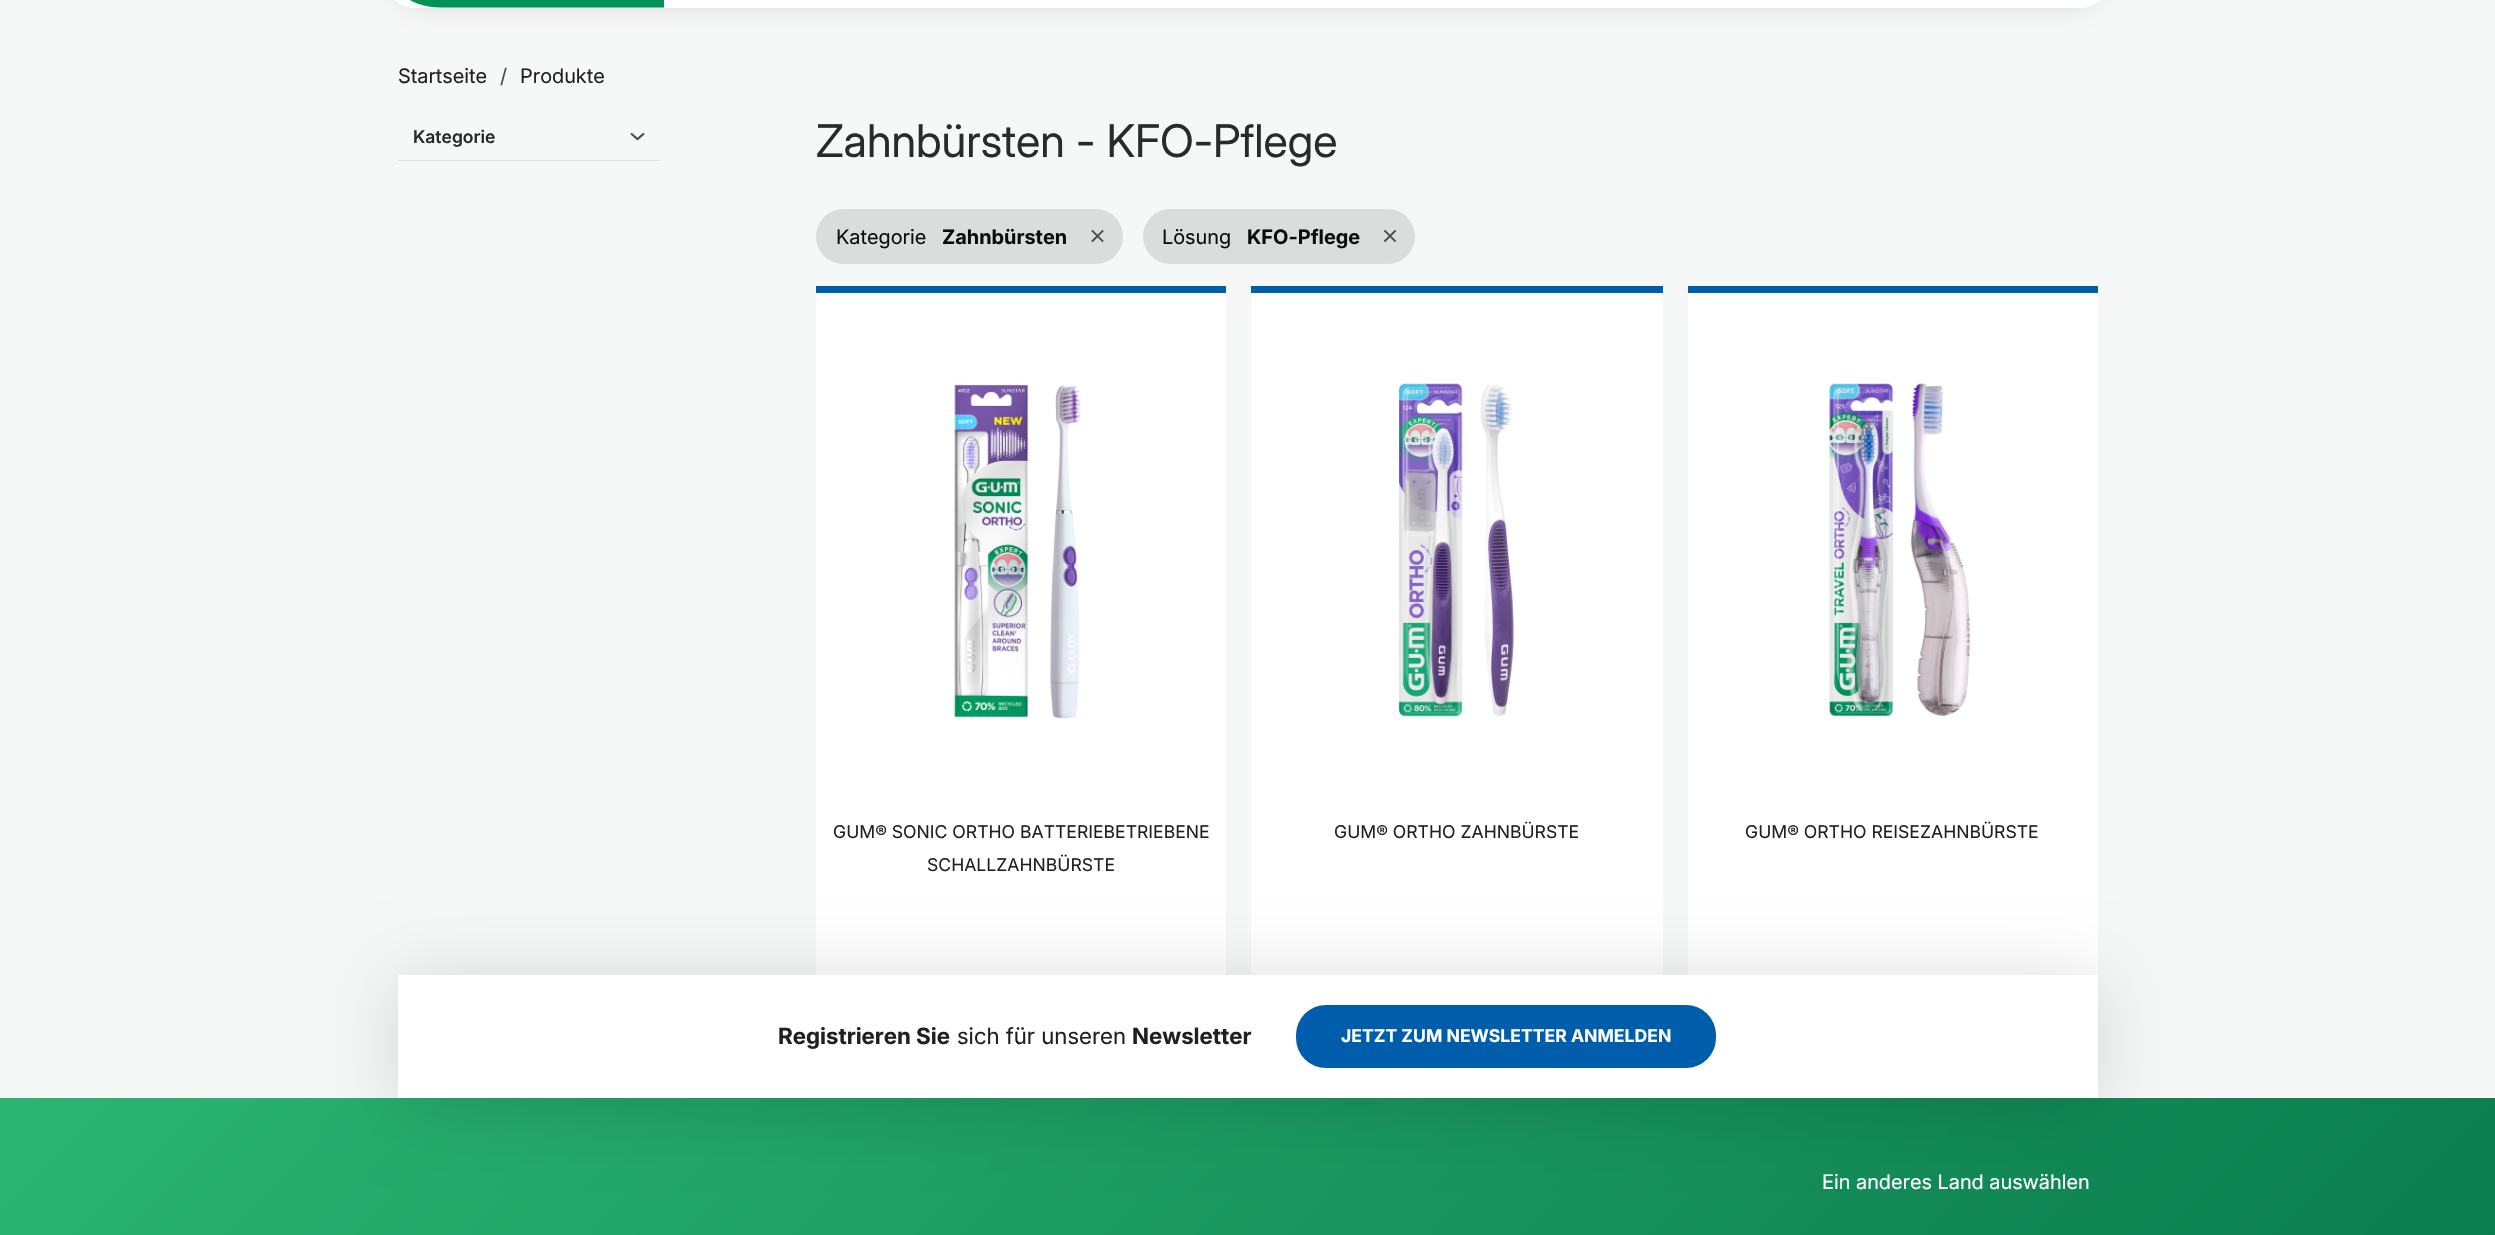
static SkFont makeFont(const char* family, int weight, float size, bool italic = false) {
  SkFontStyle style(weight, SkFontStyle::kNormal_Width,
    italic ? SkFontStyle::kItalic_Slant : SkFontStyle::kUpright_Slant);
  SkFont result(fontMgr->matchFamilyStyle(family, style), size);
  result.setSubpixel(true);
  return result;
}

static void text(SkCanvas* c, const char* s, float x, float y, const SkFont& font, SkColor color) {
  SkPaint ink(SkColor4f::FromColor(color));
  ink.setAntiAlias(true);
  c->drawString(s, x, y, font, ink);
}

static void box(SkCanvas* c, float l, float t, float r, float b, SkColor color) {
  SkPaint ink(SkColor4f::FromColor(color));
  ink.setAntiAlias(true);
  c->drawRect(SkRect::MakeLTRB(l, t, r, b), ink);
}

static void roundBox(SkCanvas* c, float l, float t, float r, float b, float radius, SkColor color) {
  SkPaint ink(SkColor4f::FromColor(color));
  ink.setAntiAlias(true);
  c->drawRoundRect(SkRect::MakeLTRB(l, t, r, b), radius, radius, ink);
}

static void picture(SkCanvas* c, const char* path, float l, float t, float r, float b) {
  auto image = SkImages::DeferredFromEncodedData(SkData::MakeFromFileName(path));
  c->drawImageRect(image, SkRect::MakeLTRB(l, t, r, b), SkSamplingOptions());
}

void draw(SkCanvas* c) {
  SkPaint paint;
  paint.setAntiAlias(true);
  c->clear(0xfff6f7f7);
  paint.setColor(0x1a000000);
  paint.setMaskFilter(SkMaskFilter::MakeBlur(kNormal_SkBlurStyle, 10));
  c->drawRoundRect(SkRect::MakeLTRB(385, -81, 2110, 10), 50.5f, 50.5f, paint);
  paint.setMaskFilter(nullptr);
  roundBox(c, 385, -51, 2110, 8, 51, 0xffffffff);
  picture(c, "img_01.png", 410, 0, 664, 8);
  SkFont face1 = makeFont("Inter", 400, 20);
  text(c, "Startseite", 398, 83, face1, 0xff231f20);
  text(c, "/", 500, 83, face1, 0xff464c4e);
  text(c, "Produkte", 520, 83, face1, 0xff231f20);
  box(c, 398, 160, 660, 161, 0xffe2e3e7);
  SkFont face2 = makeFont("Inter", 600, 17.5f);
  text(c, "Kategorie", 413, 143, face2, 0xff272b29);
  paint.setStyle(SkPaint::kStroke_Style);
  paint.setStrokeWidth(2.1f);
  paint.setColor(0xff464c4e);
  c->drawPath(SkPathBuilder().moveTo(644, 133.5f).lineTo(637.5f, 139).lineTo(631, 133.5f).detach(), paint);
  SkFont face3 = makeFont("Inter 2", 400, 45);
  text(c, "Zahnbürsten - KFO-Pflege", 816, 157, face3, 0xff272b29);
  roundBox(c, 816, 209, 1123, 264, 27.5f, 0xffd9dddb);
  text(c, "Kategorie", 836, 244, face1, 0xff0c0d0d);
  SkFont face4 = makeFont("Inter", 700, 20);
  text(c, "Zahnbürsten", 942, 244, face4, 0xff0c0d0d);
  paint.setStrokeWidth(1.8f);
  paint.setStrokeCap(SkPaint::kSquare_Cap);
  paint.setStrokeJoin(SkPaint::kRound_Join);
  paint.setColor(0xff464e4a);
  c->drawPath(SkPathBuilder().moveTo(1102.5f, 231).lineTo(1092.5f, 241).moveTo(1092.5f, 231).lineTo(1102.5f, 241).detach(), paint);
  roundBox(c, 1143, 209, 1415, 264, 27.5f, 0xffd9dddb);
  text(c, "Lösung", 1162, 244, face1, 0xff0c0d0d);
  text(c, "KFO-Pflege", 1247, 244, face4, 0xff0c0d0d);
  c->drawPath(SkPathBuilder().moveTo(1395, 231).lineTo(1385, 241).moveTo(1385, 231).lineTo(1395, 241).detach(), paint);
  box(c, 816, 293, 1226, 975, 0xffffffff);
  box(c, 816, 286, 1226, 293, 0xff005dab);
  picture(c, "img_02.png", 953, 384, 1081, 719);
  SkFont face5 = makeFont("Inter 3", 400, 17.6f);
  text(c, "GUM® SONIC ORTHO BATTERIEBETRIEBENE", 833, 838, face5, 0xff231f20);
  text(c, "SCHALLZAHNBÜRSTE", 927, 871, face5, 0xff231f20);
  box(c, 1251, 293, 1663, 975, 0xffffffff);
  box(c, 1251, 286, 1663, 293, 0xff005dab);
  picture(c, "img_03.png", 1399, 383, 1514, 717);
  text(c, "GUM® ORTHO ZAHNBÜRSTE", 1334, 838, face5, 0xff231f20);
  box(c, 1688, 293, 2098, 975, 0xffffffff);
  box(c, 1688, 286, 2098, 293, 0xff005dab);
  picture(c, "img_04.png", 1829, 383, 1971, 717);
  text(c, "GUM® ORTHO REISEZAHNBÜRSTE", 1745, 838, face5, 0xff231f20);
  paint.setStyle(SkPaint::kFill_Style);
  {
    const SkColor colors[] = {0xff2bb573, 0xff06754a};
    const float stops[] = {0, 1};
    const SkPoint ends[] = {{499, 598}, {1996, 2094}};
    paint.setShader(SkGradientShader::MakeLinear(ends, colors, stops, 2, SkTileMode::kClamp));
    paint.setAlpha(255);
  }
  c->drawRect(SkRect::MakeLTRB(0, 1098, 2495, 1235), paint);
  paint.setShader(nullptr);
  paint.setColor(0x26000000);
  paint.setMaskFilter(SkMaskFilter::MakeBlur(kNormal_SkBlurStyle, 37.5f));
  c->drawRect(SkRect::MakeLTRB(398, 983, 2098, 1105), paint);
  paint.setMaskFilter(nullptr);
  box(c, 398, 975, 2098, 1098, 0xffffffff);
  SkFont face6 = makeFont("Inter 2", 700, 22.5f);
  text(c, "Registrieren Sie", 778, 1044, face6, 0xff231f20);
  SkFont face7 = makeFont("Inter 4", 400, 22.5f);
  text(c, "sich für unseren", 957, 1044, face7, 0xff231f20);
  text(c, "Newsletter", 1132, 1044, face6, 0xff231f20);
  roundBox(c, 1296, 1005, 1716, 1068, 30, 0xff005dab);
  SkFont face8 = makeFont("Inter 3", 700, 17.6f);
  text(c, "JETZT ZUM NEWSLETTER ANMELDEN", 1341, 1042, face8, 0xffffffff);
  text(c, "Ein anderes Land auswählen", 1822, 1189, face1, 0xffffffff);
}
